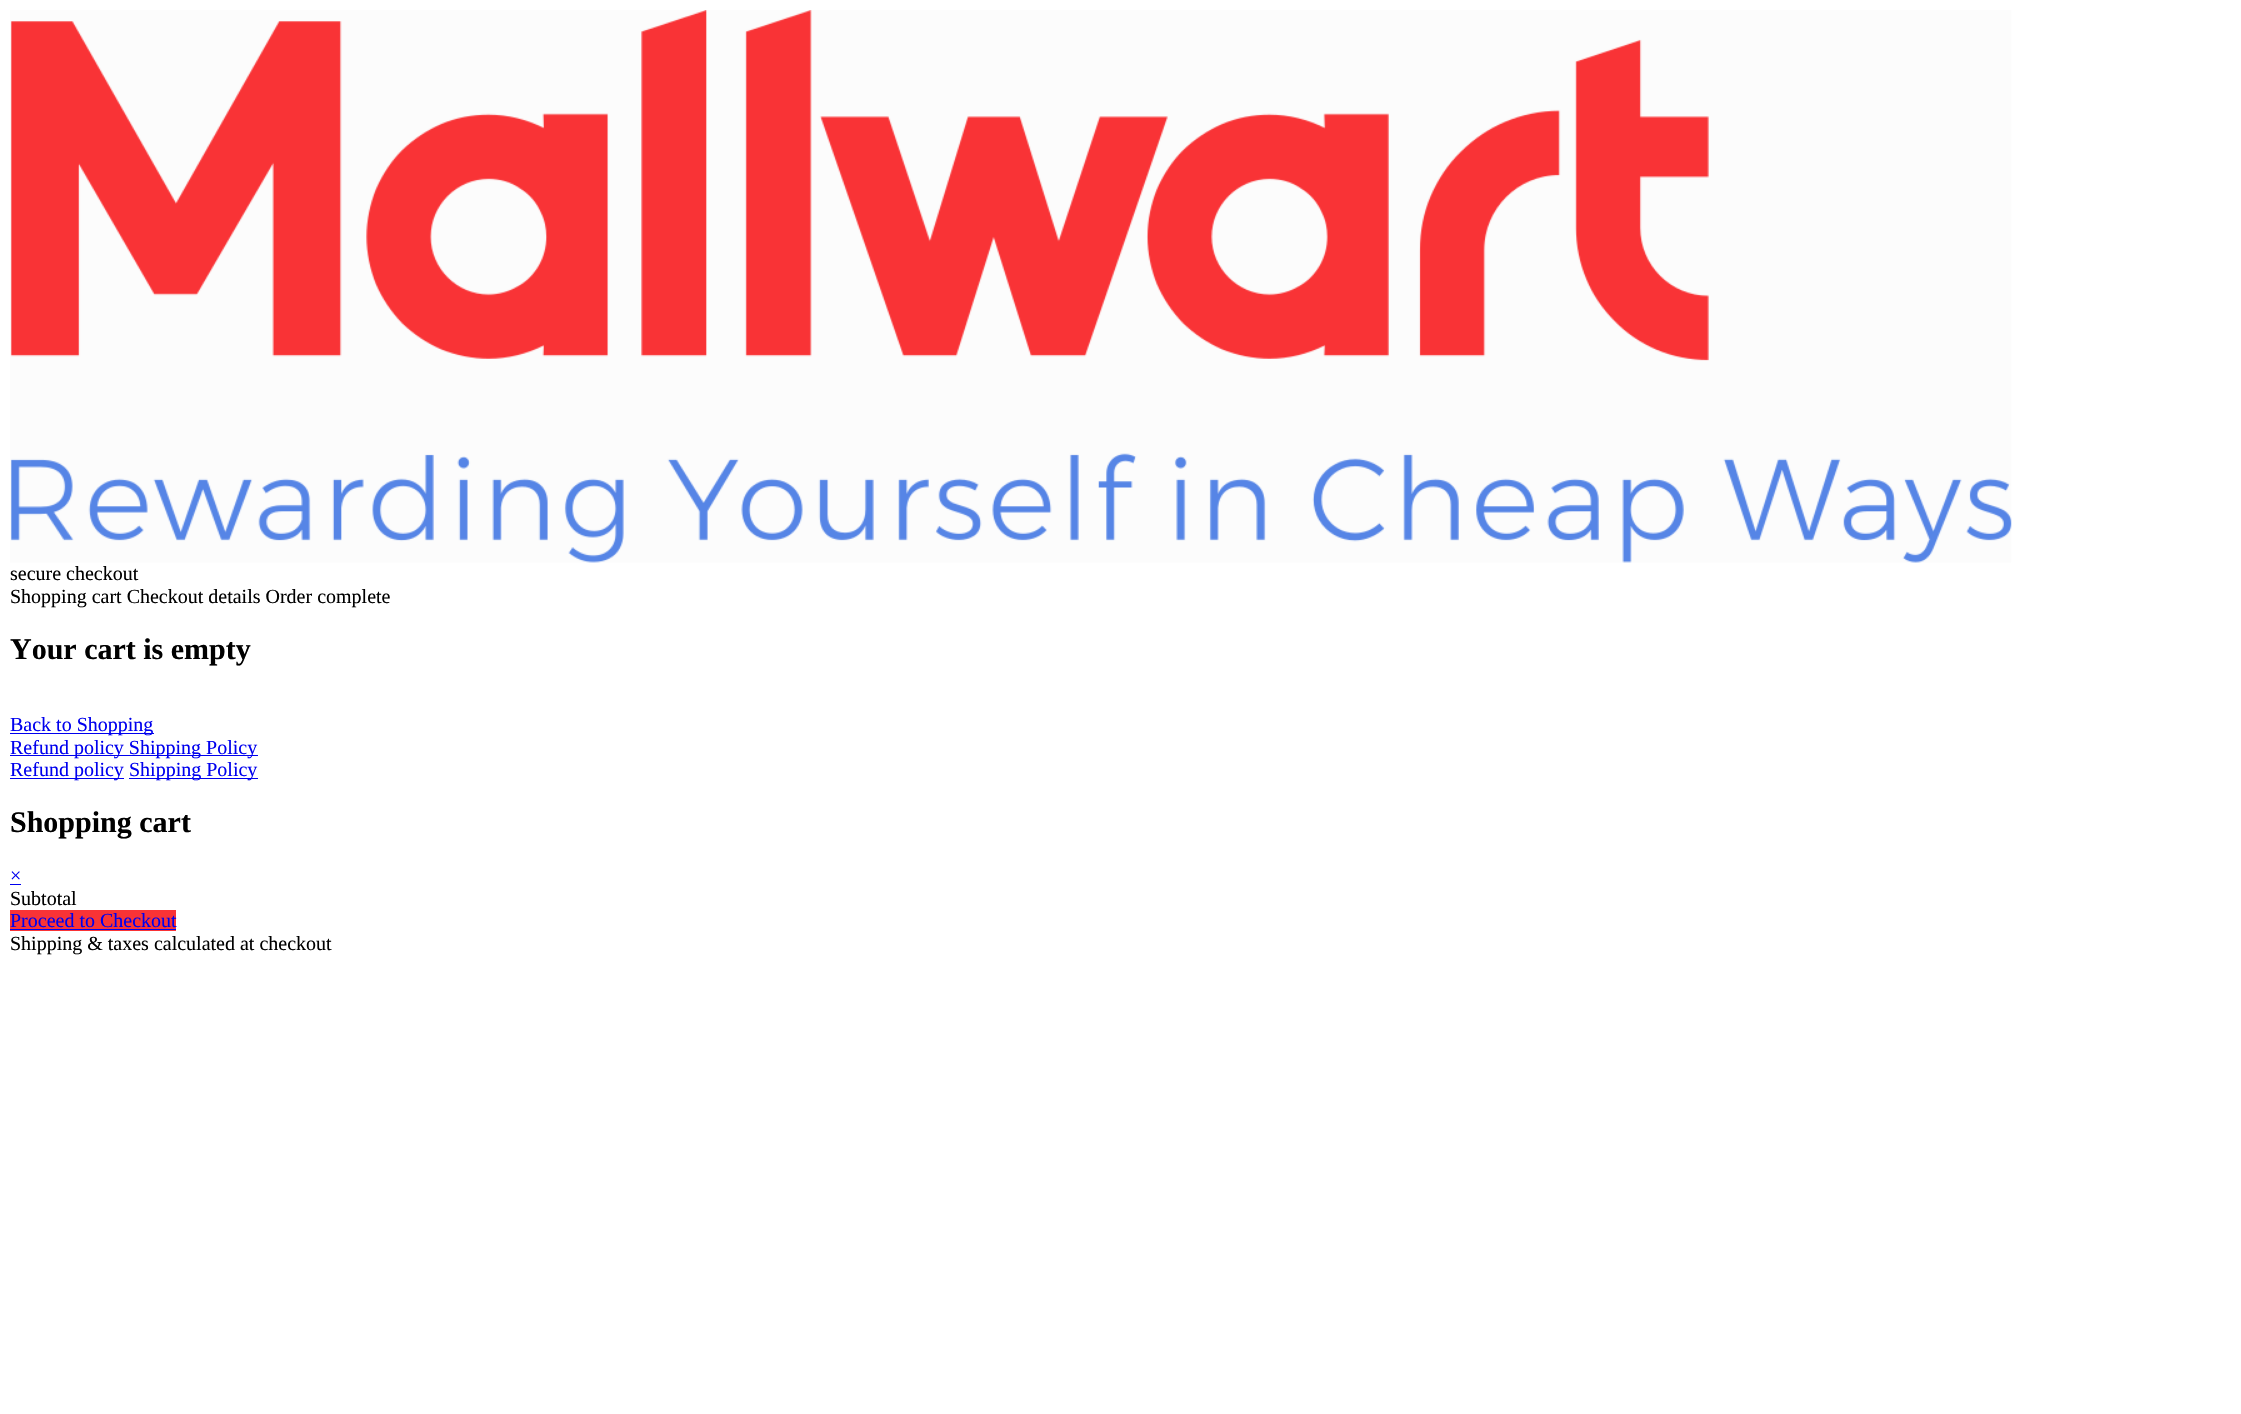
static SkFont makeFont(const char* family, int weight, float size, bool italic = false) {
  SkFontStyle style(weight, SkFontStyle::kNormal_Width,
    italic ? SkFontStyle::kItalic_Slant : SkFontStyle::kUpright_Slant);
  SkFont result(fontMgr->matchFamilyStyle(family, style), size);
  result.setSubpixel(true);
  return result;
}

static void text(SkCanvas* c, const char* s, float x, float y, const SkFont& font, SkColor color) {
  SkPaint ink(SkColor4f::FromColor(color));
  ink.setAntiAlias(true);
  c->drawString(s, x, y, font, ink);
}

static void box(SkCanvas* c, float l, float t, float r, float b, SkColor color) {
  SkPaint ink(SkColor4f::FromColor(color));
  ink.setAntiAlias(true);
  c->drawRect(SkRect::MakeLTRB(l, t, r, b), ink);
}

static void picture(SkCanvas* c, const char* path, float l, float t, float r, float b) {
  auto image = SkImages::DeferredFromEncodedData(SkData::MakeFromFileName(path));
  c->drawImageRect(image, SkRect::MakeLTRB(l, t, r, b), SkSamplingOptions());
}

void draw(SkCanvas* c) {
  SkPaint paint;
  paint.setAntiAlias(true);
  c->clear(0xffffffff);
  picture(c, "img_01.png", 10, 10, 2012, 563);
  SkFont face1 = makeFont("Liberation Serif", 400, 20);
  text(c, "secure checkout", 10, 580, face1, 0xff000000);
  text(c, "Shopping cart Checkout details Order complete", 10, 603, face1, 0xff000000);
  SkFont face2 = makeFont("Liberation Serif", 700, 30);
  text(c, "Your cart is empty", 10, 659, face2, 0xff000000);
  box(c, 10, 733, 154, 734, 0xff0000ee);
  text(c, "Back to Shopping", 10, 731, face1, 0xff0000ee);
  box(c, 10, 755, 258, 756, 0xff0000ee);
  text(c, "Refund policy Shipping Policy", 10, 754, face1, 0xff0000ee);
  box(c, 10, 778, 124, 779, 0xff0000ee);
  text(c, "Refund policy", 10, 776, face1, 0xff0000ee);
  box(c, 129, 778, 258, 779, 0xff0000ee);
  text(c, "Shipping Policy", 129, 776, face1, 0xff0000ee);
  text(c, "Shopping cart", 10, 832, face2, 0xff000000);
  text(c, "×", 10, 882, face1, 0xff0000ee);
  box(c, 10, 884, 21, 885, 0xff0000ee);
  text(c, "Subtotal", 10, 905, face1, 0xff000000);
  box(c, 10, 910, 176, 931, 0xfff93336);
  text(c, "Proceed to Checkout", 10, 927, face1, 0xff0000ee);
  box(c, 10, 929, 176, 930, 0xff0000ee);
  text(c, "Shipping & taxes calculated at checkout", 10, 950, face1, 0xff000000);
}
